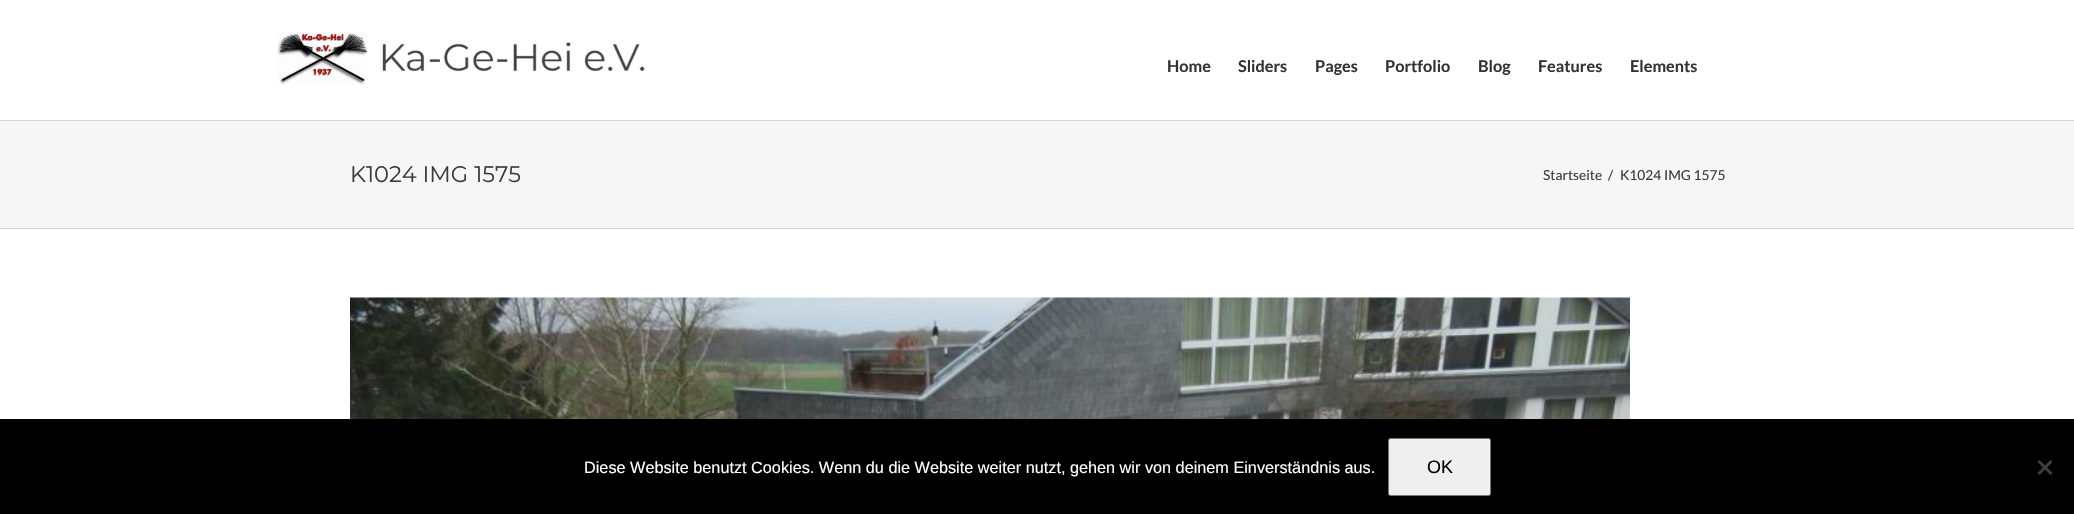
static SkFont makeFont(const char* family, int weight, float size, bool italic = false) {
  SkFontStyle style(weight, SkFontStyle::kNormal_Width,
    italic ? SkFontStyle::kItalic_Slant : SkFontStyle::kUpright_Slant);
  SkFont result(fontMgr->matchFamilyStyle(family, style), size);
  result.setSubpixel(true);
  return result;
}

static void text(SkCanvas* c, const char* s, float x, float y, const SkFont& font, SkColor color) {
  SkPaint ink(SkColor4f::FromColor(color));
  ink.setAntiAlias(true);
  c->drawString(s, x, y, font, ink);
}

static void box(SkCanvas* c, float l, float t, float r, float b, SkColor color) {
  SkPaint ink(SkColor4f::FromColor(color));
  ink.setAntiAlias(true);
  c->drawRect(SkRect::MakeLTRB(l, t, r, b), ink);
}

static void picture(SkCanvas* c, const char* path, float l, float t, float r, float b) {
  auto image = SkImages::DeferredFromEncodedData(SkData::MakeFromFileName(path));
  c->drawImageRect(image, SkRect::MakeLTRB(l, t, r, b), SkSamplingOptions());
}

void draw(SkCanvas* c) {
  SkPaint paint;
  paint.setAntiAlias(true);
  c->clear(0xffffffff);
  picture(c, "img_01.png", 277, 32, 645, 85);
  SkFont face1 = makeFont("Lato", 700, 16.25f);
  text(c, "Home", 1167, 72, face1, 0xff333333);
  text(c, "Sliders", 1238, 72, face1, 0xff333333);
  text(c, "Pages", 1315, 72, face1, 0xff333333);
  text(c, "Portfolio", 1385, 72, face1, 0xff333333);
  text(c, "Blog", 1478, 72, face1, 0xff333333);
  text(c, "Features", 1538, 72, face1, 0xff333333);
  text(c, "Elements", 1630, 72, face1, 0xff333333);
  box(c, 0, 121, 2074, 228, 0xfff6f6f6);
  box(c, 0, 120, 2074, 121, 0xffd2d3d4);
  box(c, 0, 228, 2074, 229, 0xffd2d3d4);
  SkFont face2 = makeFont("Montserrat", 400, 22.5f);
  text(c, "K1024 IMG 1575", 350, 182, face2, 0xff3a3a3a);
  SkFont face3 = makeFont("Lato", 400, 13.75f);
  text(c, "Startseite", 1543, 180, face3, 0xff3a3a3a);
  text(c, "/", 1608, 180, face3, 0xff3a3a3a);
  text(c, "K1024 IMG 1575", 1620, 180, face3, 0xff3a3a3a);
  picture(c, "img_02.png", 350, 297, 1630, 419);
  box(c, 0, 419, 2074, 514, 0xff000000);
  SkFont face4 = makeFont("Liberation Sans", 400, 16.25f);
  text(c, "Diese Website benutzt Cookies. Wenn du die Website weiter nutzt, gehen wir von deinem Einverständnis aus.", 584, 473, face4, 0xffffffff);
  paint.setColor(0xffefefef);
  c->drawRoundRect(SkRect::MakeLTRB(1388.5f, 438.5f, 1490.5f, 495.5f), 2, 2, paint);
  paint.setStyle(SkPaint::kStroke_Style);
  paint.setStrokeWidth(1);
  paint.setColor(0xff767676);
  c->drawRoundRect(SkRect::MakeLTRB(1388.5f, 438.5f, 1490.5f, 495.5f), 2, 2, paint);
  SkFont face5 = makeFont("Liberation Sans", 400, 18);
  text(c, "OK", 1427, 473, face5, 0xff000000);
  paint.setStyle(SkPaint::kFill_Style);
  paint.setColor(0xff404040);
  c->drawPath(SkPathBuilder().moveTo(2050.5f, 460).lineTo(2052.5f, 462).lineTo(2039.5f, 475).lineTo(2037.5f, 473).close().detach(), paint);
  c->drawPath(SkPathBuilder().moveTo(2037.5f, 462).lineTo(2039.5f, 460).lineTo(2052.5f, 473).lineTo(2050.5f, 475).close().detach(), paint);
}
